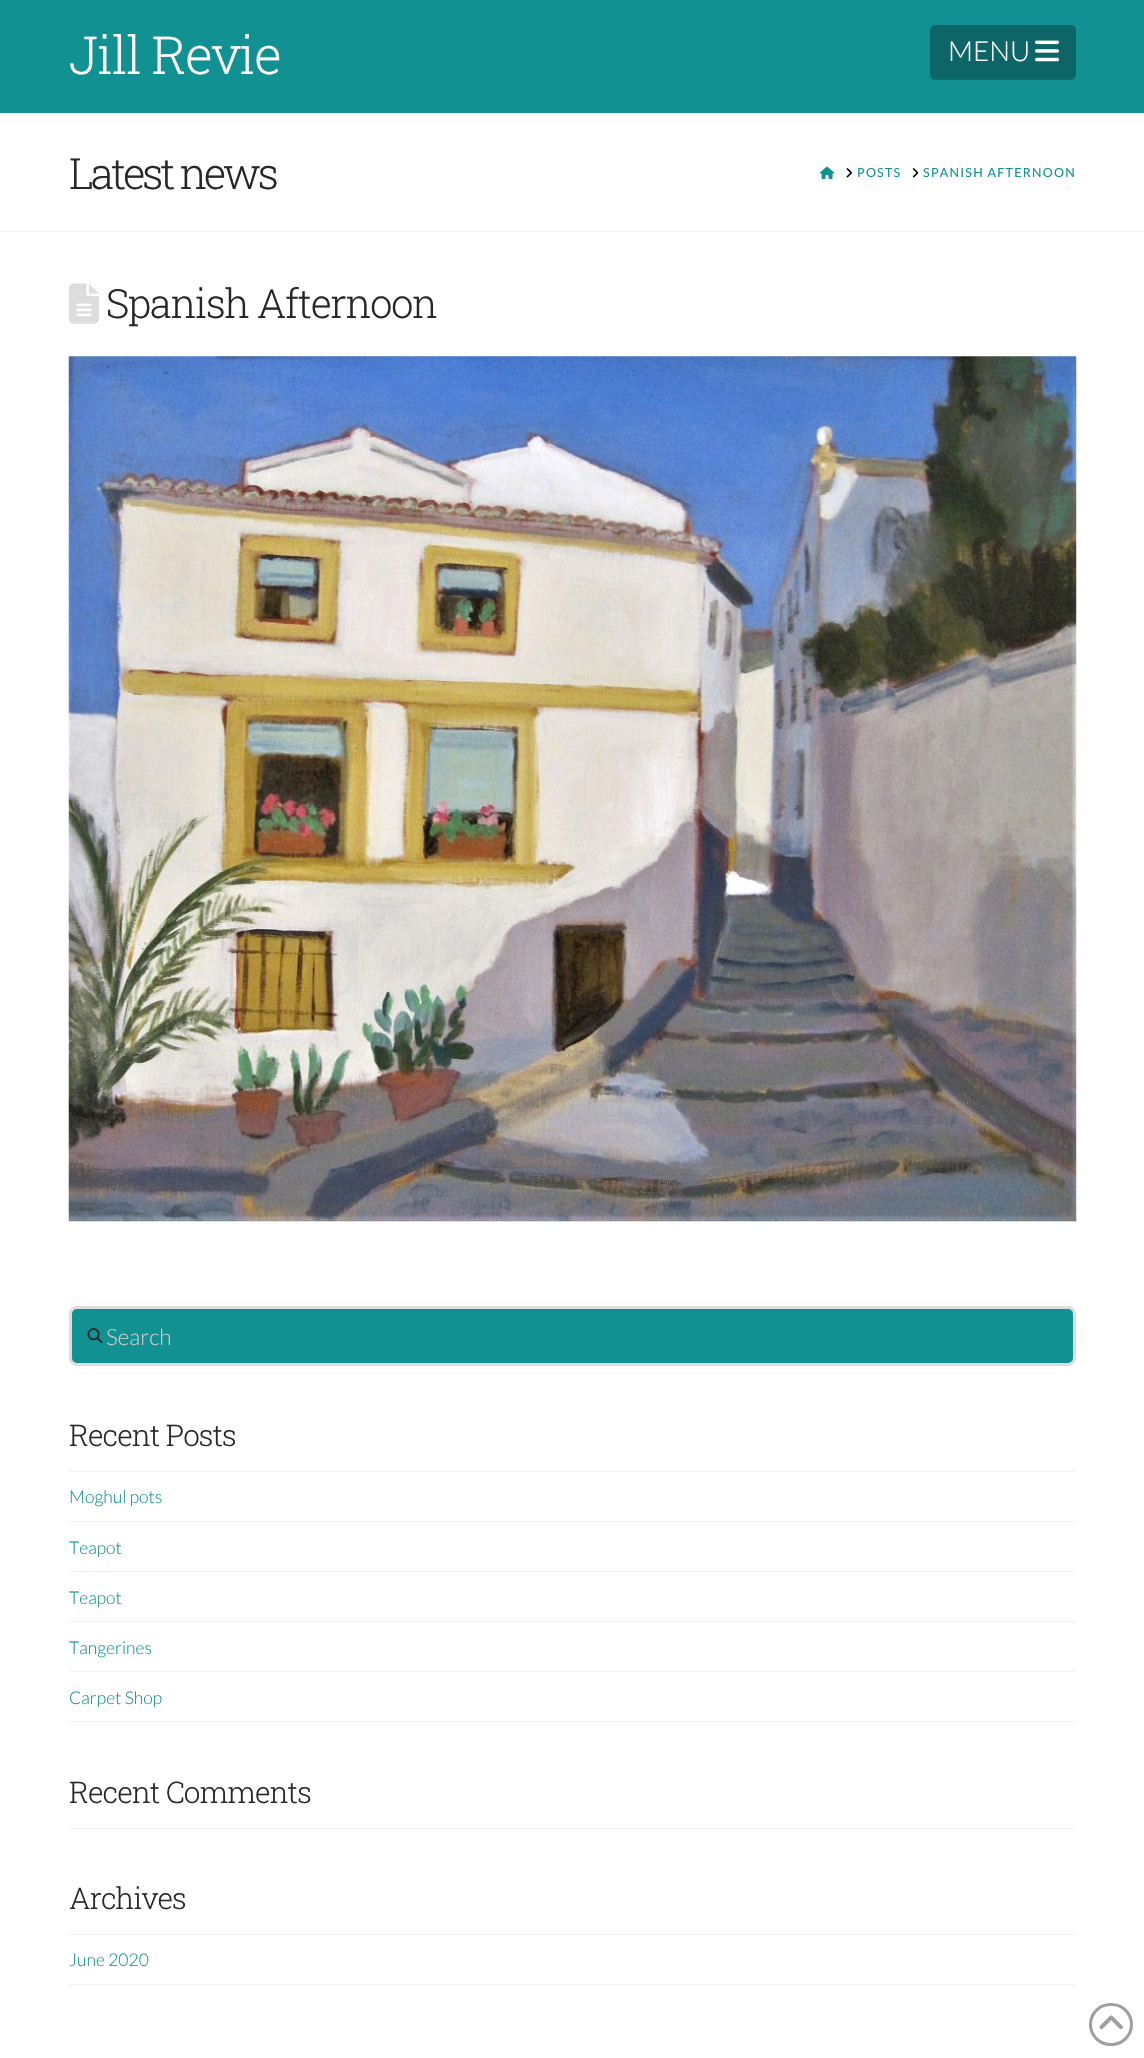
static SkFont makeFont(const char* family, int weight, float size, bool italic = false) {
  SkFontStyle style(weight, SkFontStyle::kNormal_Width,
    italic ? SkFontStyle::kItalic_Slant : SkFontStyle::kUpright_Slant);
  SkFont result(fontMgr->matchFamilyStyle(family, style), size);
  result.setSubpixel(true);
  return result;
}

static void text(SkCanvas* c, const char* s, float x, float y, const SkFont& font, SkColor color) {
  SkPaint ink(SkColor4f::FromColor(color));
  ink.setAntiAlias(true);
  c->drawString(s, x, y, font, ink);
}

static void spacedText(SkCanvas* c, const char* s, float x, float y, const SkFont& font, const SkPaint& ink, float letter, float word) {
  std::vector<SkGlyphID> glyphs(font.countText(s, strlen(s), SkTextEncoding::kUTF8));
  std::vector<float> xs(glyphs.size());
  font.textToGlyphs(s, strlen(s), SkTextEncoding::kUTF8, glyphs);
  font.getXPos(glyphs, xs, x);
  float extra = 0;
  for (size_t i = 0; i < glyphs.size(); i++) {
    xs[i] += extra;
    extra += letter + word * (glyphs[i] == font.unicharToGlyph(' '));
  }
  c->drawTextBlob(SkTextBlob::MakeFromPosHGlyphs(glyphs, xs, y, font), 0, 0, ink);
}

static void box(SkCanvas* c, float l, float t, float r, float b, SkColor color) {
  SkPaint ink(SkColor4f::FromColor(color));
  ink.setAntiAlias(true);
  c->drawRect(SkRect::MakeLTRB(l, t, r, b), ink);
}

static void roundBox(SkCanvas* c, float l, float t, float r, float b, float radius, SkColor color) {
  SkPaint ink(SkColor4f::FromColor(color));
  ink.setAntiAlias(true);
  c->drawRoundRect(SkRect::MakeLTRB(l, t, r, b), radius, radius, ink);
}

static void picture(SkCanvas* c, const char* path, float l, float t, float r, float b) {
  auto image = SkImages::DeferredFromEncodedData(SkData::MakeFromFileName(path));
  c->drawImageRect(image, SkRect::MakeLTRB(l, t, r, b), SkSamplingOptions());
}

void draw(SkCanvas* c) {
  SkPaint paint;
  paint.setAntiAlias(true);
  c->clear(0xffffffff);
  box(c, 0, 0, 1144, 113, 0xff129193);
  SkFont face1 = makeFont("Roboto Slab", 300, 52.5f);
  paint.setColor(0xffffffff);
  spacedText(c, "Jill Revie", 69, 74, face1, paint, -1.5f, 0);
  paint.setColor(0xff0e6d6e);
  c->drawPath(SkPathBuilder().moveTo(930, 72).lineTo(930, 75).cubicTo(930, 78, 932, 80, 935, 80).lineTo(1071, 80).cubicTo(1074, 80, 1076, 78, 1076, 75).lineTo(1076, 74).cubicTo(1075, 76, 1073, 78, 1071, 78).lineTo(935, 78).cubicTo(932, 78, 930, 75, 930, 72).close().detach(), paint);
  roundBox(c, 930, 25, 1076, 78, 5, 0xff0d6567);
  SkFont face2 = makeFont("Lato", 300, 27.5f);
  text(c, "MENU", 948, 61, face2, 0xffffffff);
  picture(c, "img_01.png", 1035, 40, 1060, 62);
  box(c, 0, 113, 1144, 114, 0xfff2f2f2);
  box(c, 0, 231, 1144, 232, 0xfff2f2f2);
  SkFont face3 = makeFont("Roboto Slab", 300, 43);
  paint.setColor(0xff272727);
  spacedText(c, "Latest news", 69, 189, face3, paint, -3.25f, 0);
  picture(c, "img_02.png", 820, 166, 834, 180);
  picture(c, "img_03.png", 846, 168, 852, 178);
  SkFont face4 = makeFont("Lato", 400, 12.5f);
  paint.setColor(0xff129193);
  spacedText(c, "POSTS", 857, 177, face4, paint, 1.25f, 0);
  picture(c, "img_04.png", 912, 168, 919, 178);
  spacedText(c, "SPANISH AFTERNOON", 923, 177, face4, paint, 1.25f, 0);
  picture(c, "img_05.png", 68, 283, 99, 324);
  SkFont face5 = makeFont("Roboto Slab", 300, 40.25f);
  paint.setColor(0xff272727);
  spacedText(c, "Spanish Afternoon", 106, 318, face5, paint, -1.4f, 0);
  picture(c, "img_06.png", 68, 356, 1077, 1222);
  paint.setColor(0xff129193);
  c->drawRoundRect(SkRect::MakeLTRB(70.5f, 1307.5f, 1074.5f, 1364.5f), 6.5f, 6.5f, paint);
  paint.setStyle(SkPaint::kStroke_Style);
  paint.setStrokeWidth(3);
  paint.setColor(0xffdddddd);
  c->drawRoundRect(SkRect::MakeLTRB(70.5f, 1307.5f, 1074.5f, 1364.5f), 6.5f, 6.5f, paint);
  picture(c, "img_07.png", 87, 1328, 103, 1344);
  SkFont face6 = makeFont("Lato", 300, 22.5f);
  text(c, "Search", 106, 1345, face6, 0xffcccccc);
  SkFont face7 = makeFont("Roboto Slab", 300, 29.75f);
  paint.setStyle(SkPaint::kFill_Style);
  paint.setColor(0xff272727);
  spacedText(c, "Recent Posts", 69, 1446, face7, paint, -1, 0);
  box(c, 69, 1471, 1076, 1472, 0xfff2f2f2);
  box(c, 69, 1521, 1076, 1522, 0xfff2f2f2);
  SkFont face8 = makeFont("Lato", 300, 17.5f);
  text(c, "Moghul pots", 69, 1503, face8, 0xff129193);
  box(c, 69, 1571, 1076, 1572, 0xfff2f2f2);
  text(c, "Teapot", 69, 1554, face8, 0xff129193);
  box(c, 69, 1621, 1076, 1622, 0xfff2f2f2);
  text(c, "Teapot", 69, 1604, face8, 0xff129193);
  box(c, 69, 1671, 1076, 1672, 0xfff2f2f2);
  text(c, "Tangerines", 69, 1654, face8, 0xff129193);
  box(c, 69, 1721, 1076, 1722, 0xfff2f2f2);
  text(c, "Carpet Shop", 69, 1704, face8, 0xff129193);
  spacedText(c, "Recent Comments", 69, 1803, face7, paint, -1, 0);
  box(c, 69, 1828, 1076, 1829, 0xfff2f2f2);
  spacedText(c, "Archives", 69, 1909, face7, paint, -1, 0);
  box(c, 69, 1934, 1076, 1935, 0xfff2f2f2);
  box(c, 69, 1984, 1076, 1985, 0xfff2f2f2);
  text(c, "June 2020", 69, 1966, face8, 0xff129193);
  paint.setStyle(SkPaint::kStroke_Style);
  paint.setColor(0xff9f9f9f);
  c->drawRoundRect(SkRect::MakeLTRB(1090.5f, 2004.5f, 1131.5f, 2044.5f), 20, 20, paint);
  picture(c, "img_08.png", 1099, 2015, 1123, 2030);
}
